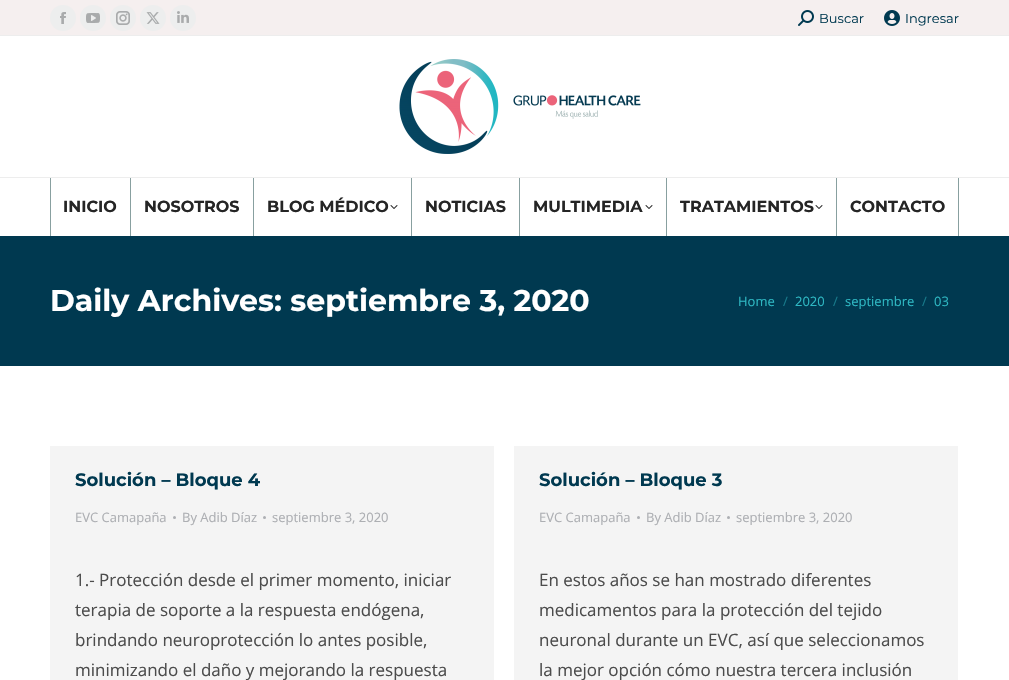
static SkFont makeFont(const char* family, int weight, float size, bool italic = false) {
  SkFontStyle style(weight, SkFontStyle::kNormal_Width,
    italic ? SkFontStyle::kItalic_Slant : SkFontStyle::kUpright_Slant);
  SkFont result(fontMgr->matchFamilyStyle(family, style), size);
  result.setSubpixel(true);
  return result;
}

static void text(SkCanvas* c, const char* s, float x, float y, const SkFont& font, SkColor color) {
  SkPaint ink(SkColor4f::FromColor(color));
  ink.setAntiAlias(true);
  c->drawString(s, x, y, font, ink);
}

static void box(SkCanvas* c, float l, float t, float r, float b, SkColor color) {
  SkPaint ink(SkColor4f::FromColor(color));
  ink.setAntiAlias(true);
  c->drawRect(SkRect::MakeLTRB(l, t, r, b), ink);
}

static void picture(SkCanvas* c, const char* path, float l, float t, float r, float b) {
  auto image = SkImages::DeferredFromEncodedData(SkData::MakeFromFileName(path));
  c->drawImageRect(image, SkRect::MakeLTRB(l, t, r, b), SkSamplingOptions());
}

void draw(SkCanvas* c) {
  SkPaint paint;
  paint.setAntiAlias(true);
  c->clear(0xffffffff);
  box(c, 0, 0, 1009, 35, 0xfff5efef);
  paint.setColor(0xffedeeee);
  c->drawCircle(63, 18, 13, paint);
  picture(c, "img_01.png", 60, 12, 66, 24);
  c->drawCircle(93, 18, 13, paint);
  picture(c, "img_02.png", 86, 13, 100, 23);
  c->drawCircle(123, 18, 13, paint);
  picture(c, "img_03.png", 116, 11, 130, 25);
  c->drawCircle(153, 18, 13, paint);
  picture(c, "img_04.png", 146, 12, 160, 24);
  c->drawCircle(183, 18, 13, paint);
  picture(c, "img_05.png", 177, 11, 189, 23);
  picture(c, "img_06.png", 798, 10, 814, 26);
  SkFont face1 = makeFont("Montserrat", 400, 13);
  text(c, "Buscar", 819, 23, face1, 0xff003950);
  picture(c, "img_07.png", 884, 10, 900, 26);
  text(c, "Ingresar", 905, 23, face1, 0xff003950);
  box(c, 0, 35, 1009, 36, 0xffededed);
  picture(c, "img_08.png", 399, 59, 641, 154);
  box(c, 0, 177, 1009, 178, 0xffededed);
  box(c, 50, 178, 51, 236, 0xff88a0a0);
  SkFont face2 = makeFont("Montserrat", 700, 16);
  text(c, "INICIO", 63, 212, face2, 0xff252525);
  box(c, 130, 178, 131, 236, 0xff88a0a0);
  text(c, "NOSOTROS", 144, 212, face2, 0xff252525);
  box(c, 253, 178, 254, 236, 0xff88a0a0);
  text(c, "BLOG MÉDICO", 267, 212, face2, 0xff252525);
  picture(c, "img_09.png", 390, 205, 398, 209);
  box(c, 411, 178, 412, 236, 0xff88a0a0);
  text(c, "NOTICIAS", 425, 212, face2, 0xff252525);
  box(c, 519, 178, 520, 236, 0xff88a0a0);
  text(c, "MULTIMEDIA", 533, 212, face2, 0xff252525);
  picture(c, "img_09.png", 645, 205, 653, 209);
  box(c, 666, 178, 667, 236, 0xff88a0a0);
  text(c, "TRATAMIENTOS", 680, 212, face2, 0xff252525);
  picture(c, "img_09.png", 815, 205, 823, 209);
  box(c, 836, 178, 837, 236, 0xff88a0a0);
  text(c, "CONTACTO", 850, 212, face2, 0xff252525);
  box(c, 958, 178, 959, 236, 0xff88a0a0);
  box(c, 0, 236, 1009, 366, 0xff003950);
  SkFont face3 = makeFont("Montserrat", 700, 30);
  text(c, "Daily Archives: septiembre 3, 2020", 50, 311, face3, 0xffffffff);
  SkFont face4 = makeFont("Open Sans", 400, 13);
  text(c, "Home", 738, 306, face4, 0xff2eb8c3);
  text(c, "/", 783, 306, face4, 0xff17798a);
  text(c, "2020", 795, 306, face4, 0xff2eb8c3);
  text(c, "/", 833, 306, face4, 0xff17798a);
  text(c, "septiembre", 845, 306, face4, 0xff2eb8c3);
  text(c, "/", 922, 306, face4, 0xff17798a);
  text(c, "03", 934, 306, face4, 0xff2eb8c3);
  box(c, 50, 446, 494, 680, 0xfff4f4f4);
  SkFont face5 = makeFont("Montserrat", 700, 18);
  text(c, "Solución – Bloque 4", 75, 486, face5, 0xff003950);
  text(c, "EVC Camapaña", 75, 522, face4, 0xffadafb3);
  paint.setColor(0xffadafb3);
  c->drawCircle(174.5f, 517.5f, 1.5f, paint);
  text(c, "By Adib Díaz", 182, 522, face4, 0xffadafb3);
  c->drawCircle(264.5f, 517.5f, 1.5f, paint);
  text(c, "septiembre 3, 2020", 272, 522, face4, 0xffadafb3);
  SkFont face6 = makeFont("Open Sans", 400, 17);
  text(c, "1.- Protección desde el primer momento, iniciar", 75, 586, face6, 0xff4c4c4c);
  text(c, "terapia de soporte a la respuesta endógena,", 75, 616, face6, 0xff4c4c4c);
  text(c, "brindando neuroprotección lo antes posible,", 75, 646, face6, 0xff4c4c4c);
  text(c, "minimizando el daño y mejorando la respuesta", 75, 676, face6, 0xff4c4c4c);
  box(c, 514, 446, 958, 680, 0xfff4f4f4);
  text(c, "Solución – Bloque 3", 539, 486, face5, 0xff003950);
  text(c, "EVC Camapaña", 539, 522, face4, 0xffadafb3);
  c->drawCircle(638.5f, 517.5f, 1.5f, paint);
  text(c, "By Adib Díaz", 646, 522, face4, 0xffadafb3);
  c->drawCircle(728.5f, 517.5f, 1.5f, paint);
  text(c, "septiembre 3, 2020", 736, 522, face4, 0xffadafb3);
  text(c, "En estos años se han mostrado diferentes", 539, 586, face6, 0xff4c4c4c);
  text(c, "medicamentos para la protección del tejido", 539, 616, face6, 0xff4c4c4c);
  text(c, "neuronal durante un EVC, así que seleccionamos", 539, 646, face6, 0xff4c4c4c);
  text(c, "la mejor opción cómo nuestra tercera inclusión", 539, 676, face6, 0xff4c4c4c);
}
